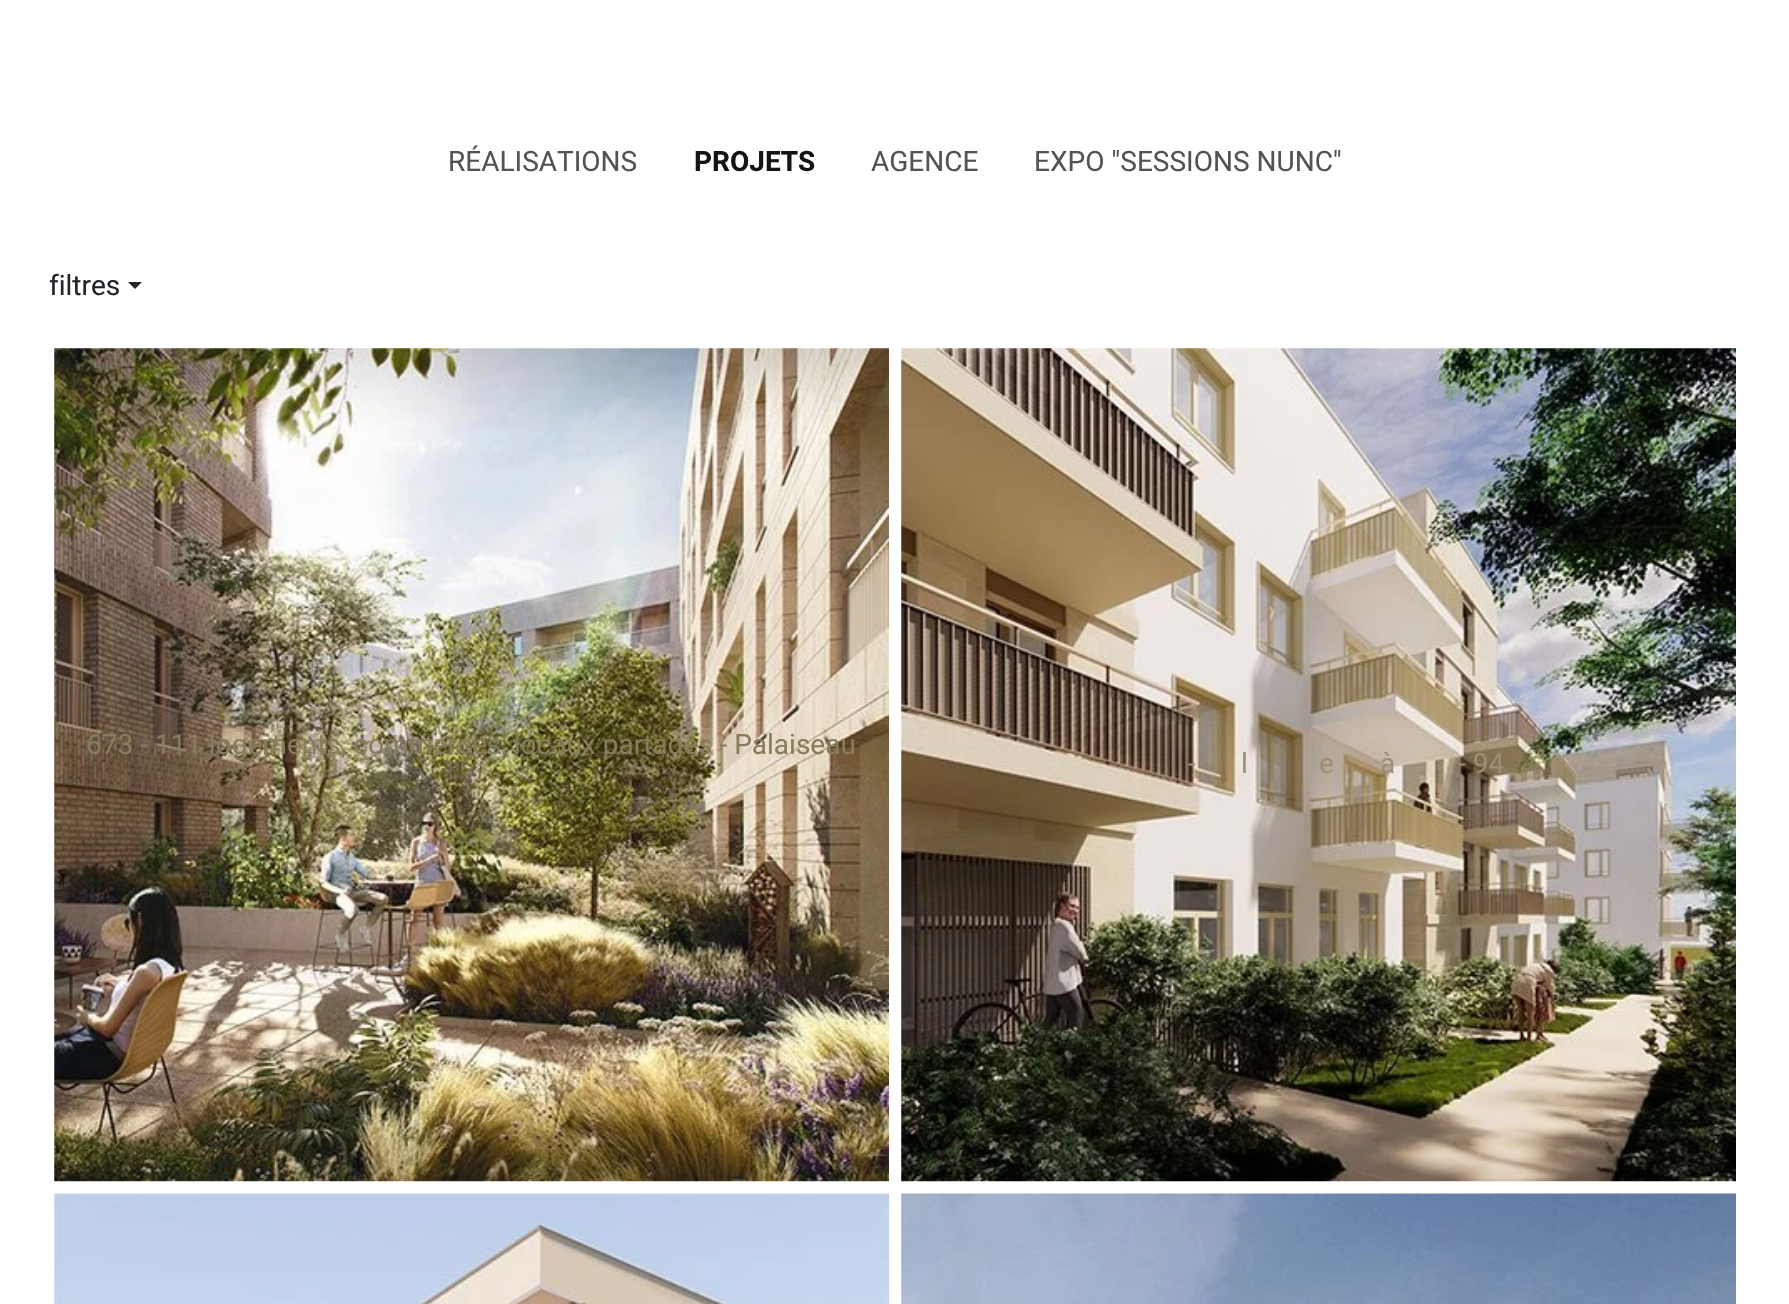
static SkFont makeFont(const char* family, int weight, float size, bool italic = false) {
  SkFontStyle style(weight, SkFontStyle::kNormal_Width,
    italic ? SkFontStyle::kItalic_Slant : SkFontStyle::kUpright_Slant);
  SkFont result(fontMgr->matchFamilyStyle(family, style), size);
  result.setSubpixel(true);
  return result;
}

static void text(SkCanvas* c, const char* s, float x, float y, const SkFont& font, SkColor color) {
  SkPaint ink(SkColor4f::FromColor(color));
  ink.setAntiAlias(true);
  c->drawString(s, x, y, font, ink);
}

static void picture(SkCanvas* c, const char* path, float l, float t, float r, float b) {
  auto image = SkImages::DeferredFromEncodedData(SkData::MakeFromFileName(path));
  c->drawImageRect(image, SkRect::MakeLTRB(l, t, r, b), SkSamplingOptions());
}

void draw(SkCanvas* c) {
  SkPaint paint;
  paint.setAntiAlias(true);
  c->clear(0xffffffff);
  SkFont face1 = makeFont("Roboto", 400, 28);
  text(c, "RÉALISATIONS", 448, 171, face1, 0xff535353);
  SkFont face2 = makeFont("Roboto", 700, 28);
  text(c, "PROJETS", 694, 171, face2, 0xff141414);
  text(c, "AGENCE", 871, 171, face1, 0xff535353);
  text(c, "EXPO \"SESSIONS NUNC\"", 1034, 171, face1, 0xff535353);
  text(c, "filtres", 49, 295, face1, 0xff212529);
  paint.setColor(0xff212529);
  c->drawPath(SkPathBuilder().moveTo(128, 282).lineTo(142, 282).lineTo(135, 289).close().detach(), paint);
  picture(c, "img_01.png", 54, 348, 889, 1182);
  text(c, "673 - 111 logements, commerces, locaux partagés - Palaiseau", 86, 754, face1, 0xff877c5b);
  picture(c, "img_02.png", 901, 348, 1736, 1182);
  text(c, "-", 1188, 773, face1, 0xff9e8d77);
  text(c, "l", 1241, 773, face1, 0xff9e8d77);
  text(c, "e", 1319, 773, face1, 0xff9e8d77);
  text(c, "à", 1380, 773, face1, 0xff9e8d77);
  text(c, "- 94", 1458, 773, face1, 0xff9e8d77);
  picture(c, "img_03.png", 54, 1193, 889, 1304);
  picture(c, "img_04.png", 901, 1193, 1736, 1304);
}
